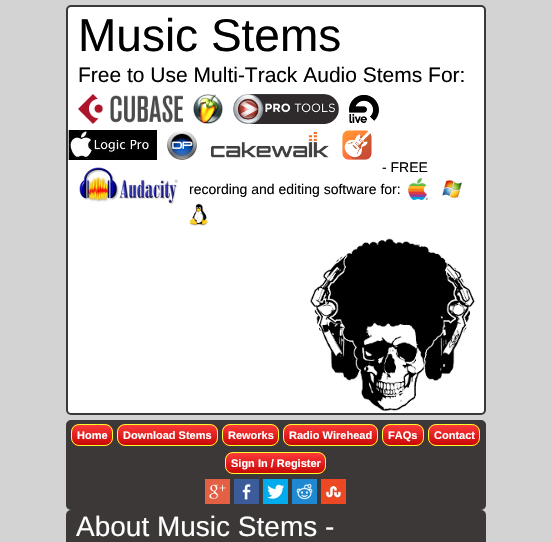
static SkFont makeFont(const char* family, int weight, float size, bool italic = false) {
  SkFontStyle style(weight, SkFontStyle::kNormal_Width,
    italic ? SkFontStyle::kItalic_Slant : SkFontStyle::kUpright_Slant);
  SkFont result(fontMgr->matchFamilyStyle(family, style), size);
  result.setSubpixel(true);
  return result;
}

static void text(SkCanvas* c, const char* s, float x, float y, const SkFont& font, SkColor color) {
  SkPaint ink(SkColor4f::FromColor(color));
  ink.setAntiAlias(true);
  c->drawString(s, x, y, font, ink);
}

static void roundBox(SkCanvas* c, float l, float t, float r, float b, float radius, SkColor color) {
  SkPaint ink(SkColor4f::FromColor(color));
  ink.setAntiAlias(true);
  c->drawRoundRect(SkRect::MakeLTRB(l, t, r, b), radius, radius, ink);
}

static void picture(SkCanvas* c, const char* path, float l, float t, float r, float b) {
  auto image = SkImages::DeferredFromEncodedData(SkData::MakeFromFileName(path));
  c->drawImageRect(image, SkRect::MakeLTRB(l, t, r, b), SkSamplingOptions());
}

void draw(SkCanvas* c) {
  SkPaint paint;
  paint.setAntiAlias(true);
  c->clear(0xffd3d3d3);
  paint.setColor(0xffffffff);
  c->drawRoundRect(SkRect::MakeLTRB(67, 6, 485, 414), 4, 4, paint);
  paint.setStyle(SkPaint::kStroke_Style);
  paint.setStrokeWidth(2);
  paint.setColor(0xff3d3838);
  c->drawRoundRect(SkRect::MakeLTRB(67, 6, 485, 414), 4, 4, paint);
  SkFont face1 = makeFont("Liberation Sans", 400, 46);
  text(c, "Music Stems", 78, 51, face1, 0xff000000);
  SkFont face2 = makeFont("Liberation Sans", 400, 21);
  text(c, "Free to Use Multi-Track Audio Stems For:", 78, 82, face2, 0xff000000);
  picture(c, "img_01.png", 78, 94, 183, 124);
  picture(c, "img_02.png", 193, 94, 223, 124);
  picture(c, "img_03.png", 233, 94, 339, 124);
  picture(c, "img_04.png", 349, 94, 379, 123);
  picture(c, "img_05.png", 68, 130, 157, 160);
  picture(c, "img_06.png", 167, 130, 197, 160);
  picture(c, "img_07.png", 211, 132, 329, 158);
  picture(c, "img_08.png", 342, 130, 372, 160);
  picture(c, "img_09.png", 78, 166, 178, 205);
  SkFont face3 = makeFont("Liberation Sans", 400, 14);
  text(c, "- FREE", 382, 172, face3, 0xff000000);
  text(c, "recording and editing software for:", 189, 194, face3, 0xff000000);
  picture(c, "img_10.png", 408, 178, 428, 200);
  picture(c, "img_11.png", 442, 179, 462, 199);
  picture(c, "img_12.png", 189, 203, 209, 226);
  picture(c, "img_13.png", 310, 238, 475, 412);
  roundBox(c, 66, 420, 486, 510, 5, 0xff3d3838);
  roundBox(c, 71, 424, 113, 446, 8, 0xfffb0808);
  c->save();
  c->clipPath(SkPathBuilder().moveTo(79, 424).lineTo(105, 424).cubicTo(109.5f, 424, 113, 427.5f, 113, 432).lineTo(113, 438).cubicTo(113, 442.5f, 109.5f, 446, 105, 446).lineTo(79, 446).cubicTo(74.5f, 446, 71, 442.5f, 71, 438).lineTo(71, 432).cubicTo(71, 427.5f, 74.5f, 424, 79, 424).close().detach(), true);
  paint.setStyle(SkPaint::kFill_Style);
  {
    const SkColor colors[] = {0x33ffffff, 0x33000000};
    const float stops[] = {0, 1};
    const SkPoint ends[] = {{92, 425}, {92, 445}};
    paint.setShader(SkGradientShader::MakeLinear(ends, colors, stops, 2, SkTileMode::kClamp));
    paint.setAlpha(255);
  }
  c->drawRect(SkRect::MakeLTRB(71, 425, 113, 445), paint);
  c->restore();
  paint.setStyle(SkPaint::kStroke_Style);
  paint.setStrokeWidth(1);
  paint.setShader(nullptr);
  paint.setColor(0xfff7fe2e);
  c->drawRoundRect(SkRect::MakeLTRB(71.5f, 424.5f, 112.5f, 445.5f), 7.5f, 7.5f, paint);
  SkFont face4 = makeFont("Liberation Sans", 700, 11);
  text(c, "Home", 77, 439, face4, 0xffffffff);
  roundBox(c, 117, 424, 218, 446, 8, 0xfffb0808);
  c->save();
  c->clipPath(SkPathBuilder().moveTo(125, 424).lineTo(210, 424).cubicTo(214.5f, 424, 218, 427.5f, 218, 432).lineTo(218, 438).cubicTo(218, 442.5f, 214.5f, 446, 210, 446).lineTo(125, 446).cubicTo(120.5f, 446, 117, 442.5f, 117, 438).lineTo(117, 432).cubicTo(117, 427.5f, 120.5f, 424, 125, 424).close().detach(), true);
  paint.setStyle(SkPaint::kFill_Style);
  {
    const SkColor colors[] = {0x33ffffff, 0x33000000};
    const float stops[] = {0, 1};
    const SkPoint ends[] = {{168, 425}, {168, 445}};
    paint.setShader(SkGradientShader::MakeLinear(ends, colors, stops, 2, SkTileMode::kClamp));
    paint.setAlpha(255);
  }
  c->drawRect(SkRect::MakeLTRB(117, 425, 218, 445), paint);
  c->restore();
  paint.setStyle(SkPaint::kStroke_Style);
  paint.setShader(nullptr);
  paint.setColor(0xfff7fe2e);
  c->drawRoundRect(SkRect::MakeLTRB(117.5f, 424.5f, 217.5f, 445.5f), 7.5f, 7.5f, paint);
  text(c, "Download Stems", 123, 439, face4, 0xffffffff);
  roundBox(c, 222, 424, 279, 446, 8, 0xfffb0808);
  c->save();
  c->clipPath(SkPathBuilder().moveTo(230, 424).lineTo(271, 424).cubicTo(275.5f, 424, 279, 427.5f, 279, 432).lineTo(279, 438).cubicTo(279, 442.5f, 275.5f, 446, 271, 446).lineTo(230, 446).cubicTo(225.5f, 446, 222, 442.5f, 222, 438).lineTo(222, 432).cubicTo(222, 427.5f, 225.5f, 424, 230, 424).close().detach(), true);
  paint.setStyle(SkPaint::kFill_Style);
  {
    const SkColor colors[] = {0x33ffffff, 0x33000000};
    const float stops[] = {0, 1};
    const SkPoint ends[] = {{251, 425}, {251, 445}};
    paint.setShader(SkGradientShader::MakeLinear(ends, colors, stops, 2, SkTileMode::kClamp));
    paint.setAlpha(255);
  }
  c->drawRect(SkRect::MakeLTRB(222, 425, 279, 445), paint);
  c->restore();
  paint.setStyle(SkPaint::kStroke_Style);
  paint.setShader(nullptr);
  paint.setColor(0xfff7fe2e);
  c->drawRoundRect(SkRect::MakeLTRB(222.5f, 424.5f, 278.5f, 445.5f), 7.5f, 7.5f, paint);
  text(c, "Reworks", 228, 439, face4, 0xffffffff);
  roundBox(c, 283, 424, 378, 446, 8, 0xfffb0808);
  c->save();
  c->clipPath(SkPathBuilder().moveTo(291, 424).lineTo(370, 424).cubicTo(374.5f, 424, 378, 427.5f, 378, 432).lineTo(378, 438).cubicTo(378, 442.5f, 374.5f, 446, 370, 446).lineTo(291, 446).cubicTo(286.5f, 446, 283, 442.5f, 283, 438).lineTo(283, 432).cubicTo(283, 427.5f, 286.5f, 424, 291, 424).close().detach(), true);
  paint.setStyle(SkPaint::kFill_Style);
  {
    const SkColor colors[] = {0x33ffffff, 0x33000000};
    const float stops[] = {0, 1};
    const SkPoint ends[] = {{331, 425}, {331, 445}};
    paint.setShader(SkGradientShader::MakeLinear(ends, colors, stops, 2, SkTileMode::kClamp));
    paint.setAlpha(255);
  }
  c->drawRect(SkRect::MakeLTRB(283, 425, 378, 445), paint);
  c->restore();
  paint.setStyle(SkPaint::kStroke_Style);
  paint.setShader(nullptr);
  paint.setColor(0xfff7fe2e);
  c->drawRoundRect(SkRect::MakeLTRB(283.5f, 424.5f, 377.5f, 445.5f), 7.5f, 7.5f, paint);
  text(c, "Radio Wirehead", 289, 439, face4, 0xffffffff);
  roundBox(c, 382, 424, 424, 446, 8, 0xfffb0808);
  c->save();
  c->clipPath(SkPathBuilder().moveTo(390, 424).lineTo(416, 424).cubicTo(420.5f, 424, 424, 427.5f, 424, 432).lineTo(424, 438).cubicTo(424, 442.5f, 420.5f, 446, 416, 446).lineTo(390, 446).cubicTo(385.5f, 446, 382, 442.5f, 382, 438).lineTo(382, 432).cubicTo(382, 427.5f, 385.5f, 424, 390, 424).close().detach(), true);
  paint.setStyle(SkPaint::kFill_Style);
  {
    const SkColor colors[] = {0x33ffffff, 0x33000000};
    const float stops[] = {0, 1};
    const SkPoint ends[] = {{403, 425}, {403, 445}};
    paint.setShader(SkGradientShader::MakeLinear(ends, colors, stops, 2, SkTileMode::kClamp));
    paint.setAlpha(255);
  }
  c->drawRect(SkRect::MakeLTRB(382, 425, 424, 445), paint);
  c->restore();
  paint.setStyle(SkPaint::kStroke_Style);
  paint.setShader(nullptr);
  paint.setColor(0xfff7fe2e);
  c->drawRoundRect(SkRect::MakeLTRB(382.5f, 424.5f, 423.5f, 445.5f), 7.5f, 7.5f, paint);
  text(c, "FAQs", 388, 439, face4, 0xffffffff);
  roundBox(c, 428, 424, 480, 446, 8, 0xfffb0808);
  c->save();
  c->clipPath(SkPathBuilder().moveTo(436, 424).lineTo(472, 424).cubicTo(476.5f, 424, 480, 427.5f, 480, 432).lineTo(480, 438).cubicTo(480, 442.5f, 476.5f, 446, 472, 446).lineTo(436, 446).cubicTo(431.5f, 446, 428, 442.5f, 428, 438).lineTo(428, 432).cubicTo(428, 427.5f, 431.5f, 424, 436, 424).close().detach(), true);
  paint.setStyle(SkPaint::kFill_Style);
  {
    const SkColor colors[] = {0x33ffffff, 0x33000000};
    const float stops[] = {0, 1};
    const SkPoint ends[] = {{454, 425}, {454, 445}};
    paint.setShader(SkGradientShader::MakeLinear(ends, colors, stops, 2, SkTileMode::kClamp));
    paint.setAlpha(255);
  }
  c->drawRect(SkRect::MakeLTRB(428, 425, 480, 445), paint);
  c->restore();
  paint.setStyle(SkPaint::kStroke_Style);
  paint.setShader(nullptr);
  paint.setColor(0xfff7fe2e);
  c->drawRoundRect(SkRect::MakeLTRB(428.5f, 424.5f, 479.5f, 445.5f), 7.5f, 7.5f, paint);
  text(c, "Contact", 434, 439, face4, 0xffffffff);
  roundBox(c, 225, 452, 326, 474, 8, 0xfffb0808);
  c->save();
  c->clipPath(SkPathBuilder().moveTo(233, 452).lineTo(318, 452).cubicTo(322.5f, 452, 326, 455.5f, 326, 460).lineTo(326, 466).cubicTo(326, 470.5f, 322.5f, 474, 318, 474).lineTo(233, 474).cubicTo(228.5f, 474, 225, 470.5f, 225, 466).lineTo(225, 460).cubicTo(225, 455.5f, 228.5f, 452, 233, 452).close().detach(), true);
  paint.setStyle(SkPaint::kFill_Style);
  {
    const SkColor colors[] = {0x33ffffff, 0x33000000};
    const float stops[] = {0, 1};
    const SkPoint ends[] = {{276, 453}, {276, 473}};
    paint.setShader(SkGradientShader::MakeLinear(ends, colors, stops, 2, SkTileMode::kClamp));
    paint.setAlpha(255);
  }
  c->drawRect(SkRect::MakeLTRB(225, 453, 326, 473), paint);
  c->restore();
  paint.setStyle(SkPaint::kStroke_Style);
  paint.setShader(nullptr);
  paint.setColor(0xfff7fe2e);
  c->drawRoundRect(SkRect::MakeLTRB(225.5f, 452.5f, 325.5f, 473.5f), 7.5f, 7.5f, paint);
  text(c, "Sign In / Register", 231, 467, face4, 0xffffffff);
  picture(c, "img_14.png", 205, 479, 230, 504);
  picture(c, "img_15.png", 234, 479, 259, 504);
  picture(c, "img_16.png", 263, 479, 288, 504);
  picture(c, "img_17.png", 292, 479, 317, 504);
  picture(c, "img_18.png", 321, 479, 346, 504);
  roundBox(c, 66, 510, 486, 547, 5, 0xff3d3838);
  SkFont face5 = makeFont("Liberation Sans", 400, 28);
  text(c, "About Music Stems -", 76, 536, face5, 0xffffffff);
}
